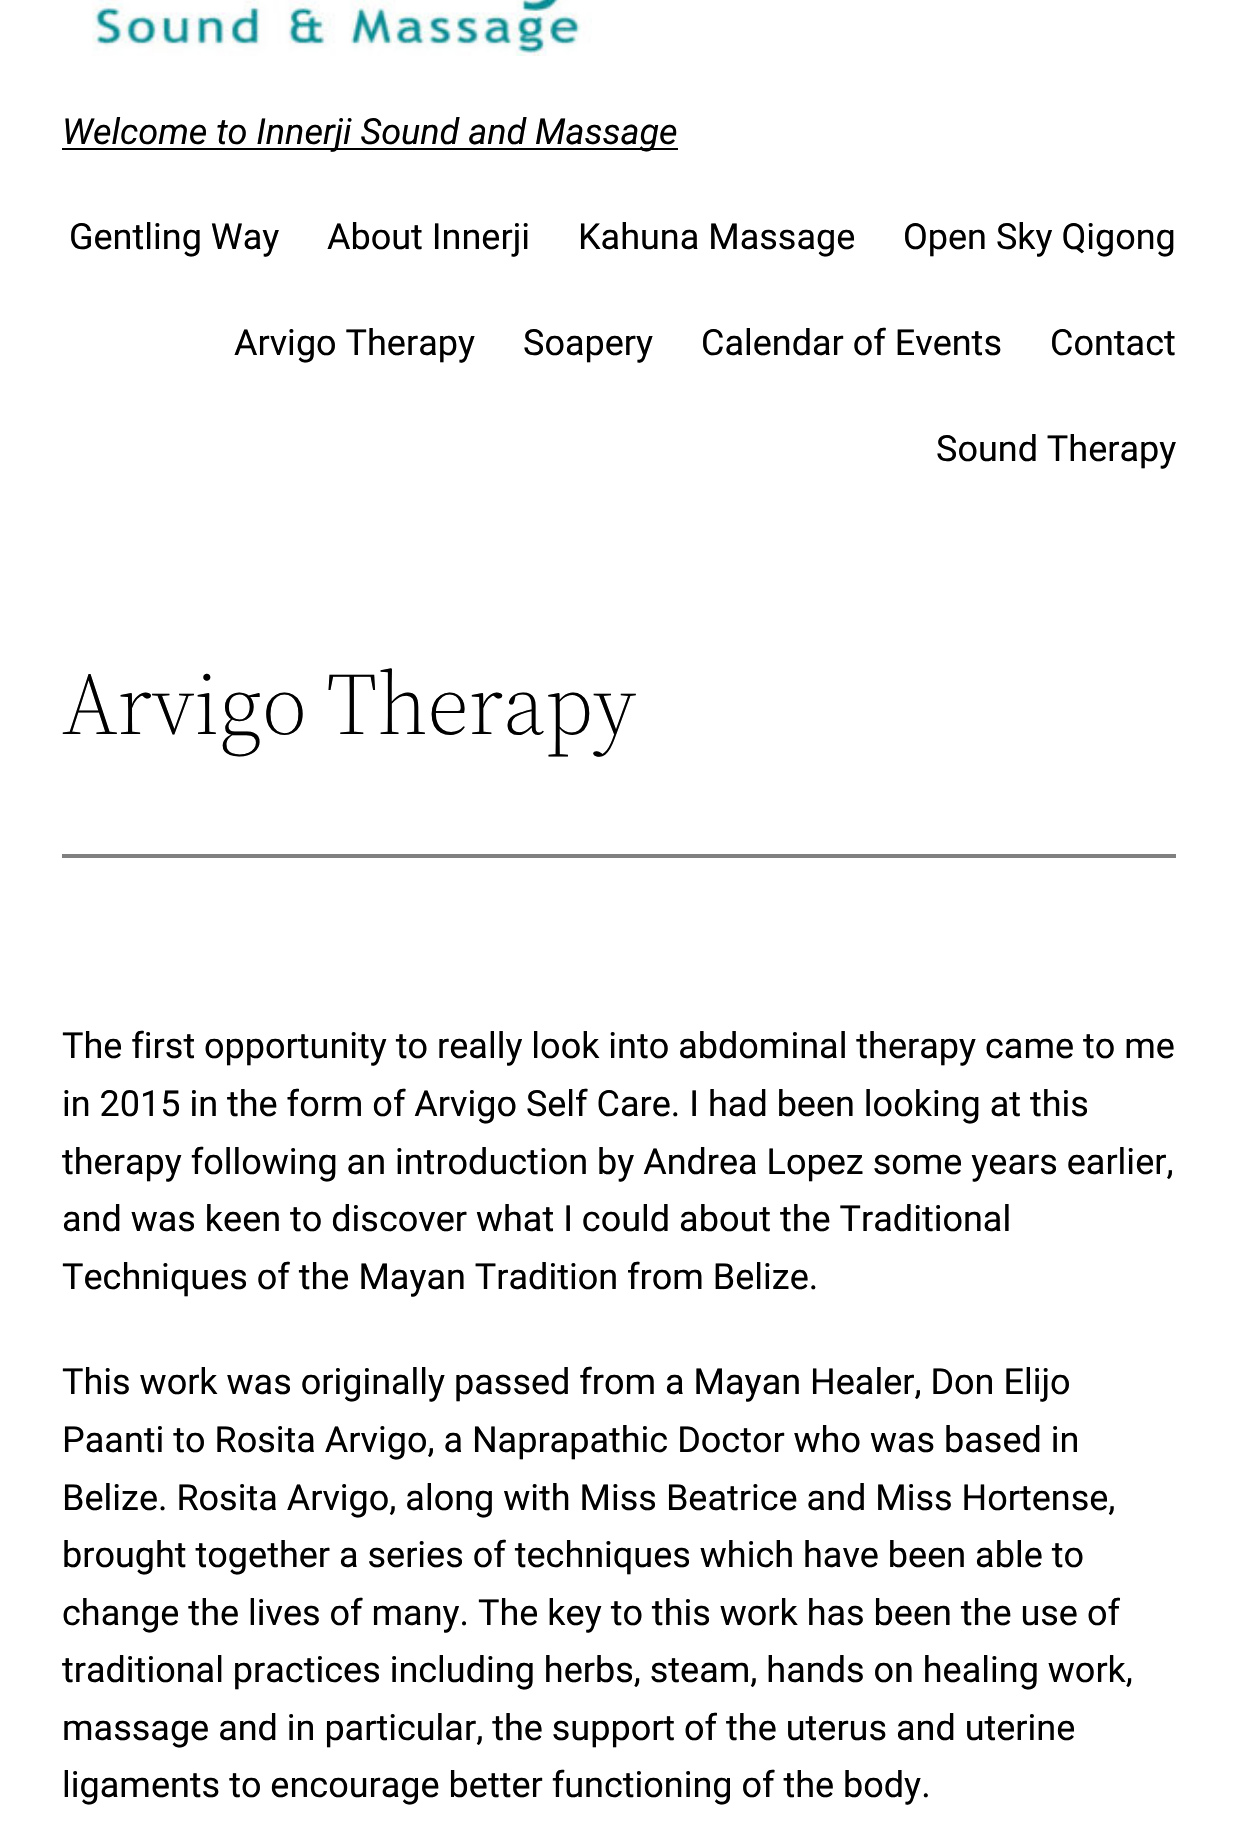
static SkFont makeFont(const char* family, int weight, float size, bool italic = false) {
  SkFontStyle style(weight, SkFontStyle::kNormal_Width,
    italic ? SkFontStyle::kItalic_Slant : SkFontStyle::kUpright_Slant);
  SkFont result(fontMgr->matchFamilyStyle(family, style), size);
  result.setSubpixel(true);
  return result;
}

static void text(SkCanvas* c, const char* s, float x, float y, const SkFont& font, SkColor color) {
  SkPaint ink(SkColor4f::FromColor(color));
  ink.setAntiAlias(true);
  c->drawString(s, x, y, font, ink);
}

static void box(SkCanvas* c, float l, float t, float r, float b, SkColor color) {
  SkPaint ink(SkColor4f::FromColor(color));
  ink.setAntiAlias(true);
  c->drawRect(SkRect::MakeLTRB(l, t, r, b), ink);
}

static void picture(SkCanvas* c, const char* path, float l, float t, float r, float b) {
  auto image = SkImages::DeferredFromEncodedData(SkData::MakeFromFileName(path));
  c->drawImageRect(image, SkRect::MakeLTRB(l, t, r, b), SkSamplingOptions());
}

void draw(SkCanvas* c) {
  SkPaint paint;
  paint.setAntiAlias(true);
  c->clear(0xffffffff);
  picture(c, "img_01.png", 92, 0, 592, 56);
  box(c, 62, 148, 678, 150, 0xff000000);
  SkFont face1 = makeFont("Roboto", 400, 36, true);
  text(c, "Welcome to Innerji Sound and Massage", 62, 144, face1, 0xff000000);
  SkFont face2 = makeFont("Roboto", 400, 36);
  text(c, "Gentling Way", 69, 249, face2, 0xff000000);
  text(c, "About Innerji", 327, 249, face2, 0xff000000);
  text(c, "Kahuna Massage", 578, 249, face2, 0xff000000);
  text(c, "Open Sky Qigong", 903, 249, face2, 0xff000000);
  text(c, "Arvigo Therapy", 234, 355, face2, 0xff000000);
  text(c, "Soapery", 523, 355, face2, 0xff000000);
  text(c, "Calendar of Events", 701, 355, face2, 0xff000000);
  text(c, "Contact", 1050, 355, face2, 0xff000000);
  text(c, "Sound Therapy", 936, 461, face2, 0xff000000);
  SkFont face3 = makeFont("Source Serif 4", 300, 88);
  text(c, "Arvigo Therapy", 62, 734, face3, 0xff000000);
  box(c, 62, 854, 1176, 858, 0xff808080);
  text(c, "The first opportunity to really look into abdominal therapy came to me", 62, 1058, face2, 0xff000000);
  text(c, "in 2015 in the form of Arvigo Self Care. I had been looking at this", 62, 1116, face2, 0xff000000);
  text(c, "therapy following an introduction by Andrea Lopez some years earlier,", 62, 1174, face2, 0xff000000);
  text(c, "and was keen to discover what I could about the Traditional", 62, 1231, face2, 0xff000000);
  text(c, "Techniques of the Mayan Tradition from Belize.", 62, 1289, face2, 0xff000000);
  text(c, "This work was originally passed from a Mayan Healer, Don Elijo", 62, 1394, face2, 0xff000000);
  text(c, "Paanti to Rosita Arvigo, a Naprapathic Doctor who was based in", 62, 1452, face2, 0xff000000);
  text(c, "Belize. Rosita Arvigo, along with Miss Beatrice and Miss Hortense,", 62, 1510, face2, 0xff000000);
  text(c, "brought together a series of techniques which have been able to", 62, 1567, face2, 0xff000000);
  text(c, "change the lives of many. The key to this work has been the use of", 62, 1625, face2, 0xff000000);
  text(c, "traditional practices including herbs, steam, hands on healing work,", 62, 1682, face2, 0xff000000);
  text(c, "massage and in particular, the support of the uterus and uterine", 62, 1740, face2, 0xff000000);
  text(c, "ligaments to encourage better functioning of the body.", 62, 1797, face2, 0xff000000);
}
